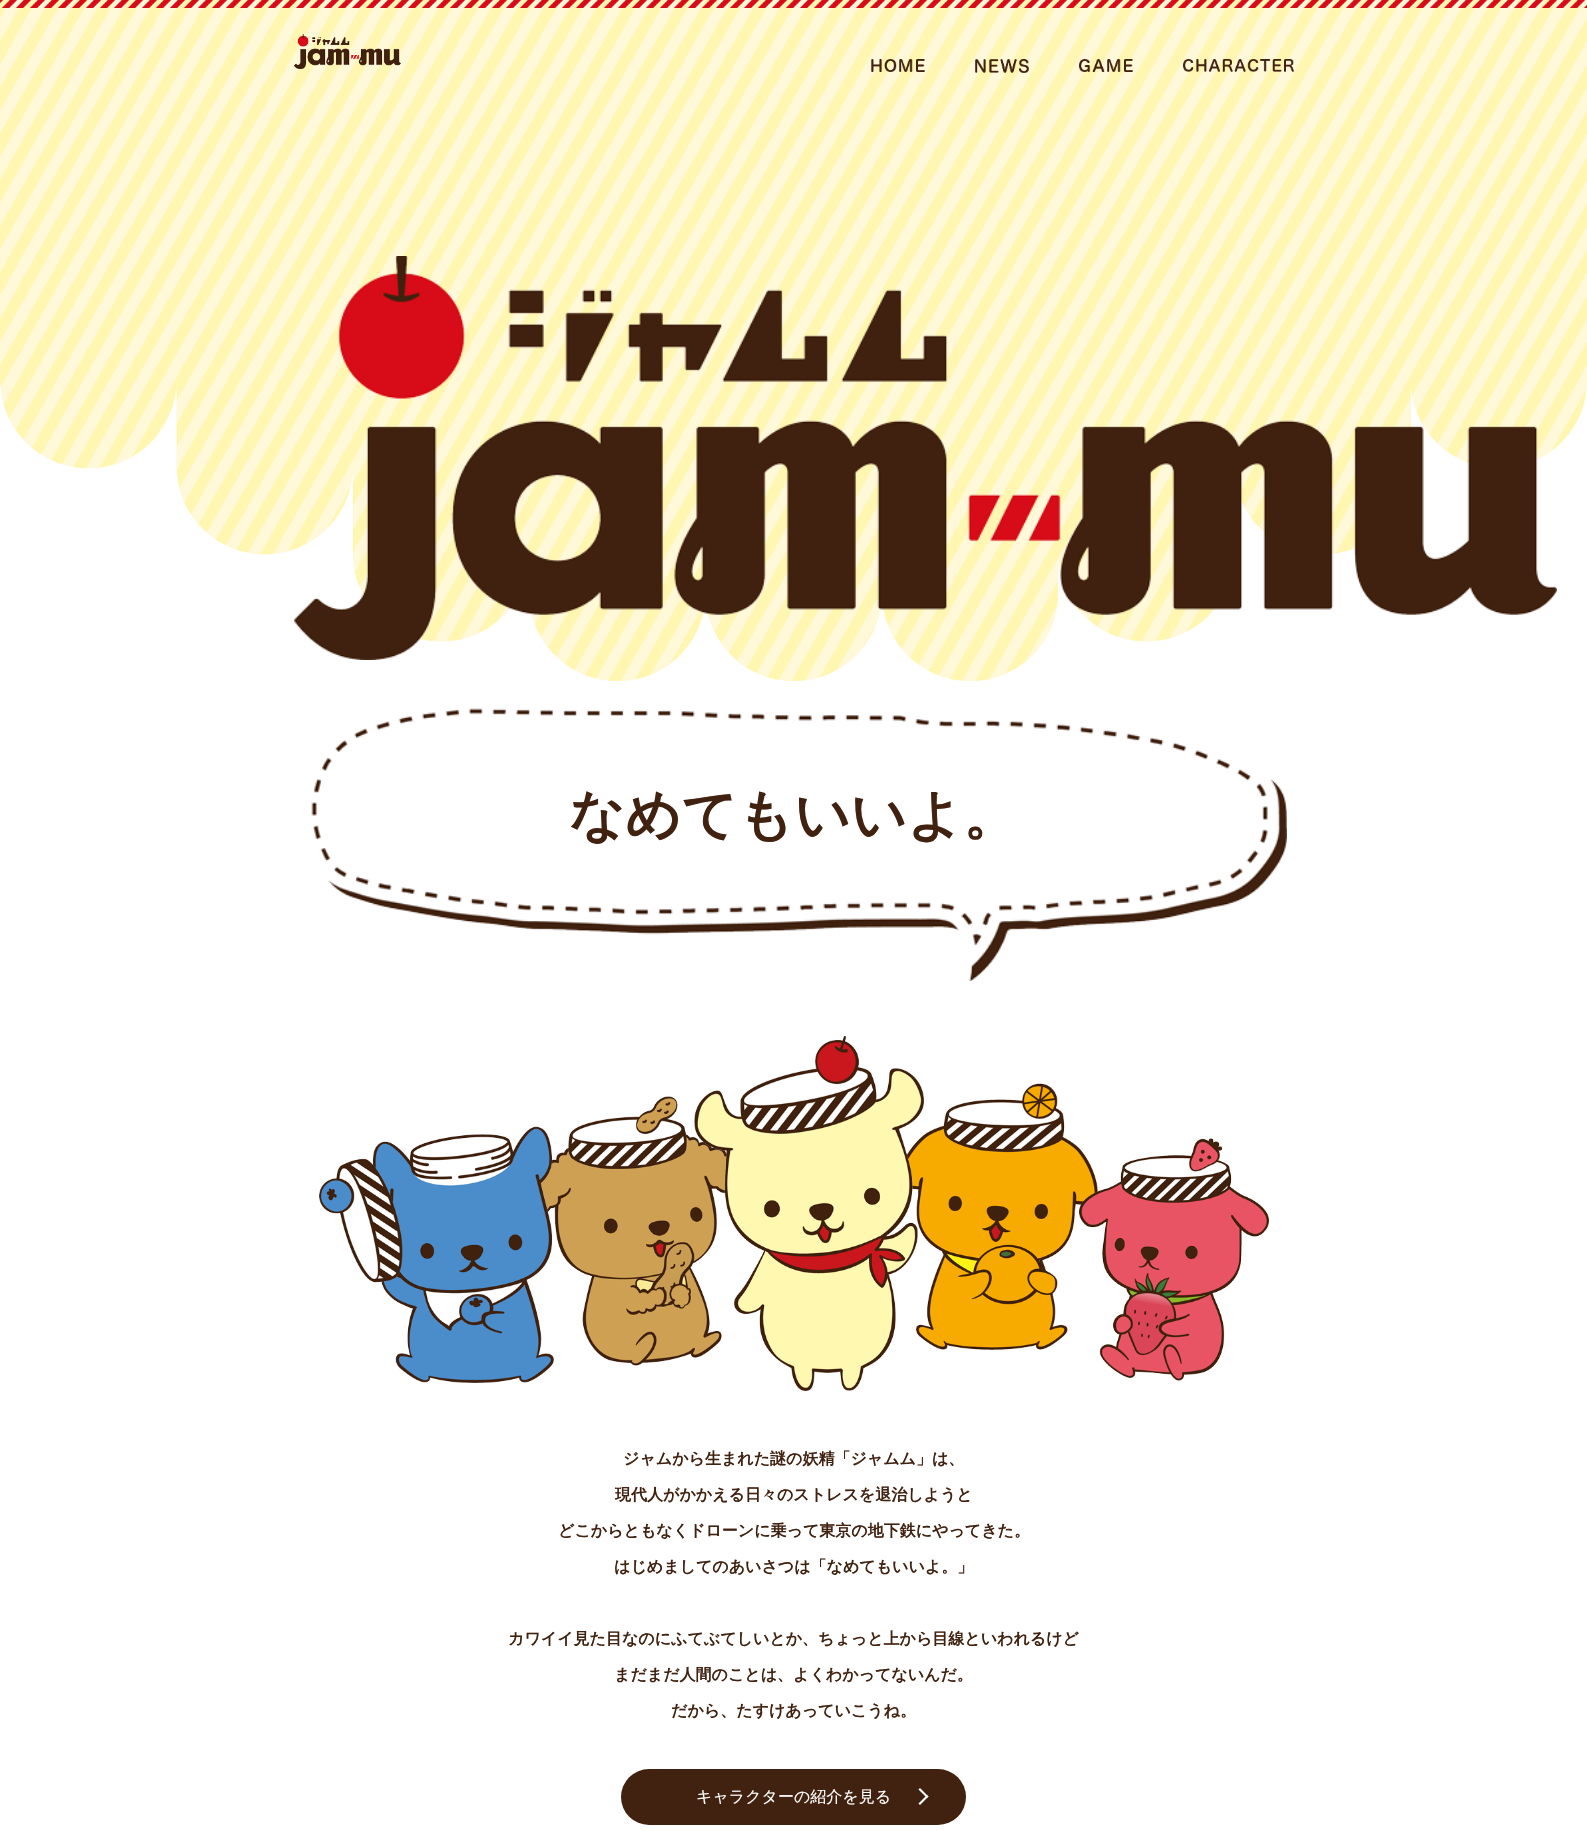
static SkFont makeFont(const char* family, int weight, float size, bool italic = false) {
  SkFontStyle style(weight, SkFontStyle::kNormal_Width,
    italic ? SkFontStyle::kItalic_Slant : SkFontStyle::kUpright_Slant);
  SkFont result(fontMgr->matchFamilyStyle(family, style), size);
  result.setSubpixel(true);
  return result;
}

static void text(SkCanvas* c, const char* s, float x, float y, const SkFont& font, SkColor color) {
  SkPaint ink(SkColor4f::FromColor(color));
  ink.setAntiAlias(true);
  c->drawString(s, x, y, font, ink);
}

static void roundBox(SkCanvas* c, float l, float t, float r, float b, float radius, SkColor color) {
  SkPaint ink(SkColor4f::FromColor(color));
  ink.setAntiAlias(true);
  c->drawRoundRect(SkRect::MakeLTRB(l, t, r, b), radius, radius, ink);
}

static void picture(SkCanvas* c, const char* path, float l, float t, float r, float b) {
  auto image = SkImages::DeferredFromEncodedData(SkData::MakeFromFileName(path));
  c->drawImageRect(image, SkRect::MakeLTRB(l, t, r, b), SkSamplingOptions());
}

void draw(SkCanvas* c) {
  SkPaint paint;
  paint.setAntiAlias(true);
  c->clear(0xffffffff);
  picture(c, "img_07.png", 0, 0, 1587, 681);
  picture(c, "img_01.png", 0, 0, 1587, 8);
  picture(c, "img_02.png", 294, 34, 401, 69);
  picture(c, "img_03.png", 871, 59, 925, 72);
  picture(c, "img_04.png", 975, 59, 1029, 73);
  picture(c, "img_05.png", 1079, 59, 1133, 72);
  picture(c, "img_06.png", 1183, 59, 1294, 72);
  picture(c, "img_08.png", 294, 256, 1557, 660);
  picture(c, "img_09.png", 311, 708, 1287, 981);
  SkFont face1 = makeFont("WenQuanYi Zen Hei", 700, 55);
  text(c, "なめてもいいよ。", 569, 834, face1, 0xff41210f);
  picture(c, "img_11.png", 540, 1096, 727, 1366);
  picture(c, "img_10.png", 319, 1126, 554, 1383);
  picture(c, "img_13.png", 906, 1083, 1098, 1350);
  picture(c, "img_12.png", 694, 1036, 924, 1391);
  picture(c, "img_14.png", 1079, 1138, 1269, 1381);
  SkFont face2 = makeFont("WenQuanYi Zen Hei", 700, 16);
  text(c, "ジャムから生まれた謎の妖精「ジャムム」は、", 623, 1464, face2, 0xff41210f);
  text(c, "現代人がかかえる日々のストレスを退治しようと", 615, 1500, face2, 0xff41210f);
  text(c, "どこからともなくドローンに乗って東京の地下鉄にやってきた。", 558, 1536, face2, 0xff41210f);
  text(c, "はじめましてのあいさつは「なめてもいいよ。」", 614, 1572, face2, 0xff41210f);
  text(c, "カワイイ見た目なのにふてぶてしいとか、ちょっと上から目線といわれるけど", 508, 1644, face2, 0xff41210f);
  text(c, "まだまだ人間のことは、よくわかってないんだ。", 614, 1680, face2, 0xff41210f);
  text(c, "だから、たすけあっていこうね。", 671, 1716, face2, 0xff41210f);
  roundBox(c, 621, 1769, 966, 1825, 28, 0xff41210f);
  SkFont face3 = makeFont("WenQuanYi Zen Hei", 500, 16);
  text(c, "キャラクターの紹介を見る", 696, 1802, face3, 0xffffffff);
  paint.setColor(0xffffffff);
  c->drawPath(SkPathBuilder().moveTo(920, 1788).lineTo(928.5f, 1796.5f).lineTo(927, 1798).lineTo(918.5f, 1789.5f).close().detach(), paint);
  c->drawPath(SkPathBuilder().moveTo(927, 1795).lineTo(928.5f, 1796.5f).lineTo(920, 1805).lineTo(918.5f, 1803.5f).close().detach(), paint);
}
